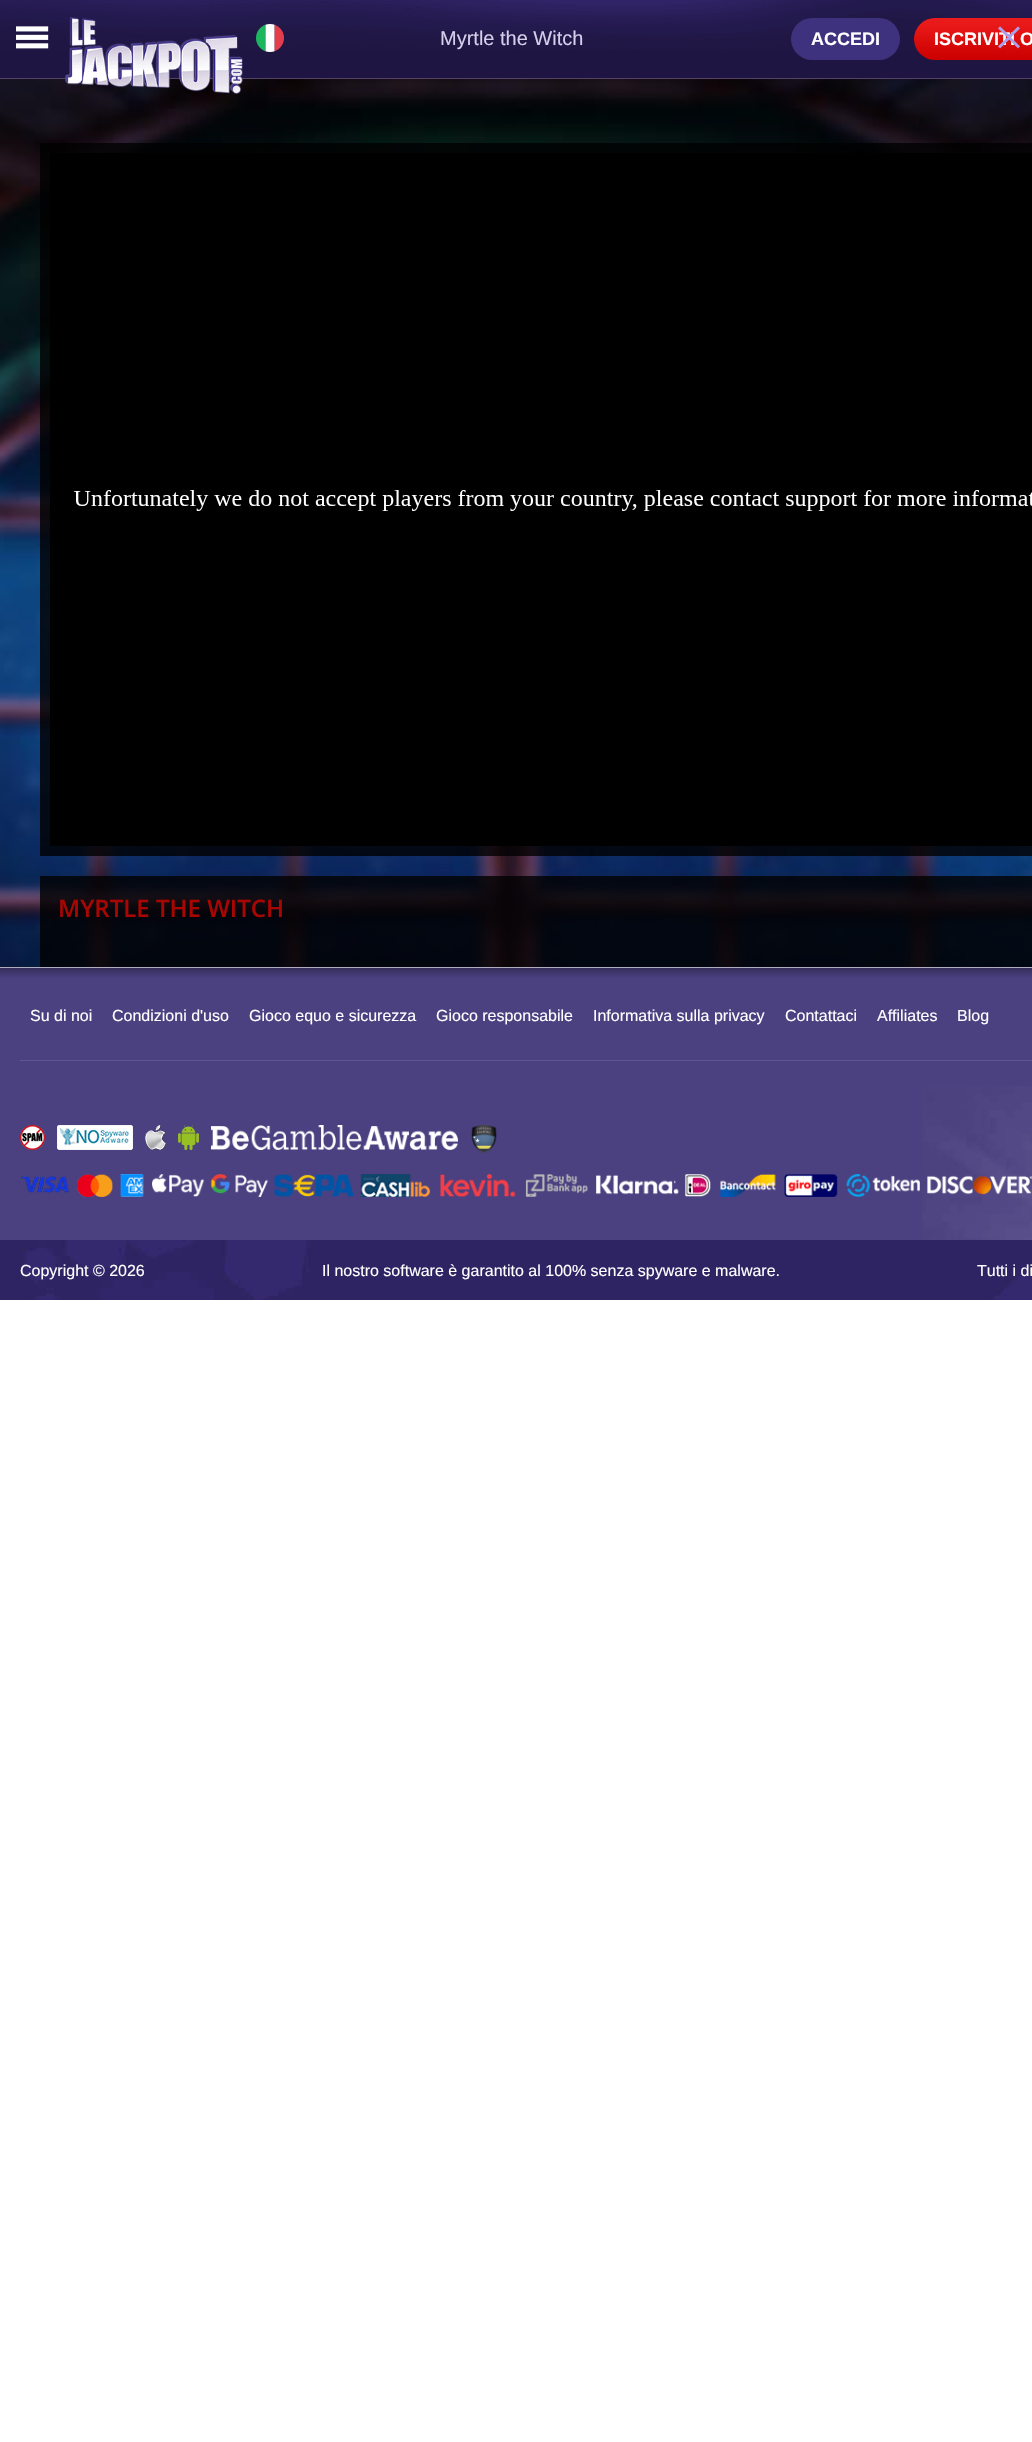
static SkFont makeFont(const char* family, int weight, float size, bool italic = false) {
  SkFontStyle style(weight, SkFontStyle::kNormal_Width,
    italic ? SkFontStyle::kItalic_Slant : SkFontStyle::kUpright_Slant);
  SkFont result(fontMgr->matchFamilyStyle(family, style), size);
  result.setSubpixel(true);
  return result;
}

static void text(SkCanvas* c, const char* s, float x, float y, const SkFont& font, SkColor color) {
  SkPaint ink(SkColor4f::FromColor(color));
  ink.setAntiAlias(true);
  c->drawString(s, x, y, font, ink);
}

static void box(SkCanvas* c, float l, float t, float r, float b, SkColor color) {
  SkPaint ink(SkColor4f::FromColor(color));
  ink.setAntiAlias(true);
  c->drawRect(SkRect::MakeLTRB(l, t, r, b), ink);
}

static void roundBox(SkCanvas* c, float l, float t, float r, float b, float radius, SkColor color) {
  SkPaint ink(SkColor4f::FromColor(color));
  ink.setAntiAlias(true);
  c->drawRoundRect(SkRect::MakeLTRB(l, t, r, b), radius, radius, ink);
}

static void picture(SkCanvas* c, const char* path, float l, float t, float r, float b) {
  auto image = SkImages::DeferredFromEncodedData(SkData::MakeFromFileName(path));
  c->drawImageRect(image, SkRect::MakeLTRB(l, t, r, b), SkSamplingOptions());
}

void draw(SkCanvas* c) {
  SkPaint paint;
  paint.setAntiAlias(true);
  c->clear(0xffffffff);
  picture(c, "img_01.png", 0, 79, 1032, 967);
  box(c, 0, 0, 1032, 78, 0xff1e1543);
  picture(c, "img_03.png", 0, 0, 1032, 51);
  SkFont face1 = makeFont("Liberation Sans", 400, 20);
  text(c, "Myrtle the Witch", 440, 45, face1, 0xffd5cfeb);
  {
    const SkColor colors[] = {0xffed1c1c, 0xffe81818, 0xffd80a0a, 0xffcc0000};
    const float stops[] = {0, 0.21f, 0.62f, 1};
    const SkPoint ends[] = {{997, 18}, {997, 60}};
    paint.setShader(SkGradientShader::MakeLinear(ends, colors, stops, 4, SkTileMode::kClamp));
    paint.setAlpha(255);
  }
  c->drawRoundRect(SkRect::MakeLTRB(914, 18, 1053, 60), 21, 21, paint);
  SkFont face2 = makeFont("Liberation Sans", 700, 18);
  text(c, "ISCRIVITI O", 934, 45, face2, 0xffffffff);
  picture(c, "img_02.png", 998, 26, 1020, 49);
  box(c, 0, 78, 1032, 79, 0xff534167);
  picture(c, "img_04.png", 65, 17, 243, 94);
  picture(c, "img_05.png", 16, 26, 49, 49);
  picture(c, "img_06.png", 256, 24, 284, 52);
  roundBox(c, 791, 18, 900, 60, 21, 0xff3e317d);
  text(c, "ACCEDI", 811, 45, face2, 0xffffffff);
  box(c, 40, 143, 1032, 856, 0xcc000000);
  picture(c, "img_07.png", 50, 153, 1032, 828);
  box(c, 50, 828, 1032, 846, 0xff000000);
  box(c, 40, 876, 1032, 967, 0xcc000000);
  SkFont face3 = makeFont("Open Sans", 600, 24);
  text(c, "MYRTLE THE WITCH", 58, 917, face3, 0xffa80602);
  box(c, 0, 978, 1032, 1240, 0xff4b4080);
  picture(c, "img_08.png", 922, 1086, 1032, 1240);
  box(c, 0, 967, 1032, 968, 0xffb0adc0);
  {
    const SkColor colors[] = {0xff352d5a, 0xff4b4080};
    const float stops[] = {0, 1};
    const SkPoint ends[] = {{630, 968}, {630, 978}};
    paint.setShader(SkGradientShader::MakeLinear(ends, colors, stops, 2, SkTileMode::kClamp));
    paint.setAlpha(255);
  }
  c->drawRect(SkRect::MakeLTRB(0, 968, 1032, 978), paint);
  box(c, 20, 1060, 1032, 1061, 0xff615598);
  SkFont face4 = makeFont("Liberation Sans", 400, 16);
  text(c, "Su di noi", 30, 1021, face4, 0xffffffff);
  text(c, "Condizioni d'uso", 112, 1021, face4, 0xffffffff);
  text(c, "Gioco equo e sicurezza", 249, 1021, face4, 0xffffffff);
  text(c, "Gioco responsabile", 436, 1021, face4, 0xffffffff);
  text(c, "Informativa sulla privacy", 593, 1021, face4, 0xffffffff);
  text(c, "Contattaci", 785, 1021, face4, 0xffffffff);
  text(c, "Affiliates", 877, 1021, face4, 0xffffffff);
  text(c, "Blog", 957, 1021, face4, 0xffffffff);
  picture(c, "img_09.png", 20, 1125, 45, 1150);
  picture(c, "img_10.png", 57, 1125, 133, 1150);
  picture(c, "img_11.png", 145, 1125, 166, 1150);
  picture(c, "img_12.png", 178, 1125, 199, 1150);
  picture(c, "img_13.png", 211, 1125, 458, 1150);
  picture(c, "img_14.png", 471, 1125, 497, 1153);
  picture(c, "img_15.png", 21, 1174, 1032, 1197);
  box(c, 0, 1240, 22, 1300, 0xff2f2463);
  picture(c, "img_16.png", 22, 1240, 1032, 1300);
  text(c, "Copyright © 2026", 20, 1276, face4, 0xffffffff);
  text(c, "Il nostro software è garantito al 100% senza spyware e malware.", 322, 1276, face4, 0xffffffff);
  text(c, "Tutti i di", 977, 1276, face4, 0xffffffff);
}
